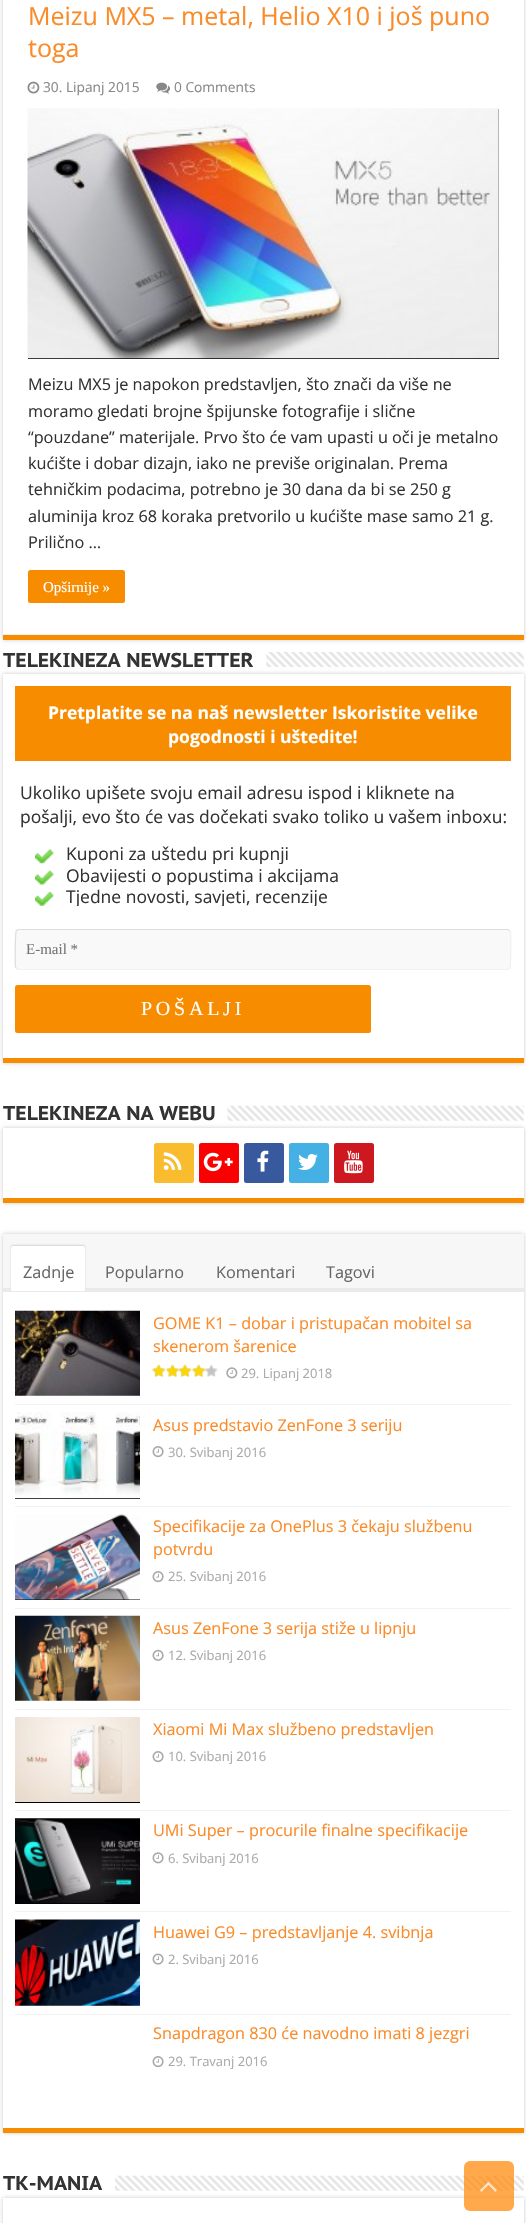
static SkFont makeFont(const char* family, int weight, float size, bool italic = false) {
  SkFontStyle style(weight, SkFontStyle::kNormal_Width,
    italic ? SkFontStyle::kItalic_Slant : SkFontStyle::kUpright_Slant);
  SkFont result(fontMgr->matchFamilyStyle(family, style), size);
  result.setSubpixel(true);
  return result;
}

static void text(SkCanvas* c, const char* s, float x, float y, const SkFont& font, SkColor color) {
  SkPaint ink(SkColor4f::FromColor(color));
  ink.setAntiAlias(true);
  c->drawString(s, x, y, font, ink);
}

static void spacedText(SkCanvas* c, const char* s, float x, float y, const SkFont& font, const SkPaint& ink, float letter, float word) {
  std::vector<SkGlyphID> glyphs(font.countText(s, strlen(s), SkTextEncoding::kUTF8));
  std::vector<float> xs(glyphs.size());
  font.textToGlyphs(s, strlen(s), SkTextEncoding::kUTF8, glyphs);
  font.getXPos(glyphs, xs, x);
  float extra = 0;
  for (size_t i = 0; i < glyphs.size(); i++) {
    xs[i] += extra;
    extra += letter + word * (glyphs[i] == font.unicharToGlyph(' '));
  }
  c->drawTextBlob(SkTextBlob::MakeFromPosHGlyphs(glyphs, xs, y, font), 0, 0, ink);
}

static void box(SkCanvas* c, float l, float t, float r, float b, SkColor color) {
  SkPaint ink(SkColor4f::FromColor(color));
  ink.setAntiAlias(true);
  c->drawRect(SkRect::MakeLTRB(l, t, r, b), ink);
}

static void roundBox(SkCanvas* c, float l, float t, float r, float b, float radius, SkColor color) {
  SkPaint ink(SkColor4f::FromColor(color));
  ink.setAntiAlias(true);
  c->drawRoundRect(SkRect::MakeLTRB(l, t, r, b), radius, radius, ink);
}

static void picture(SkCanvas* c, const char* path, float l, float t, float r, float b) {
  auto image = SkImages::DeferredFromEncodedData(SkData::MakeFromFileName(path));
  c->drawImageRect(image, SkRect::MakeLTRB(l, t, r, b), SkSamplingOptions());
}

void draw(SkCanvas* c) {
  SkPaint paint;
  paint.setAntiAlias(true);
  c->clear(0xffffffff);
  paint.setColor(0xffcacaca);
  paint.setMaskFilter(SkMaskFilter::MakeBlur(kNormal_SkBlurStyle, 2));
  c->drawRect(SkRect::MakeLTRB(3, -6, 524, 640), paint);
  paint.setMaskFilter(nullptr);
  box(c, 3, 0, 524, 634, 0xffffffff);
  box(c, 3, 635, 524, 640, 0xfff88c00);
  box(c, 3, 634, 524, 635, 0xfff2f2f2);
  SkFont face1 = makeFont("Open Sans", 400, 25);
  text(c, "Meizu MX5 – metal, Helio X10 i još puno", 28, 25, face1, 0xfffa8b29);
  text(c, "toga", 28, 57, face1, 0xfffa8b29);
  picture(c, "img_01.png", 27, 81, 40, 94);
  SkFont face2 = makeFont("Open Sans", 400, 13.75f);
  text(c, "30. Lipanj 2015", 43, 92, face2, 0xff888888);
  picture(c, "img_02.png", 156, 82, 170, 94);
  text(c, "0 Comments", 174, 92, face2, 0xff888888);
  box(c, 28, 109, 499, 359, 0xff000000);
  picture(c, "img_03.png", 27, 108, 499, 359);
  SkFont face3 = makeFont("Open Sans", 400, 16.25f);
  text(c, "Meizu MX5 je napokon predstavljen, što znači da više ne", 28, 390, face3, 0xff333333);
  text(c, "moramo gledati brojne špijunske fotografije i slične", 28, 417, face3, 0xff333333);
  text(c, "“pouzdane” materijale. Prvo što će vam upasti u oči je metalno", 28, 443, face3, 0xff333333);
  text(c, "kućište i dobar dizajn, iako ne previše originalan. Prema", 28, 469, face3, 0xff333333);
  text(c, "tehničkim podacima, potrebno je 30 dana da bi se 250 g", 28, 495, face3, 0xff333333);
  text(c, "aluminija kroz 68 koraka pretvorilo u kućište mase samo 21 g.", 28, 522, face3, 0xff333333);
  text(c, "Prilično …", 28, 548, face3, 0xff333333);
  roundBox(c, 28, 570, 125, 603, 2.5f, 0xfff88c00);
  SkFont face4 = makeFont("Liberation Serif", 400, 15);
  text(c, "Opširnije »", 43, 592, face4, 0xffffffff);
  paint.setMaskFilter(SkMaskFilter::MakeBlur(kNormal_SkBlurStyle, 2));
  c->drawRect(SkRect::MakeLTRB(3, 674, 524, 1063), paint);
  paint.setMaskFilter(nullptr);
  SkFont face5 = makeFont("PT Sans Caption", 700, 20);
  text(c, "TELEKINEZA NEWSLETTER", 3, 667, face5, 0xff333333);
  picture(c, "img_04.png", 266, 652, 524, 667);
  box(c, 3, 674, 524, 1058, 0xffffffff);
  box(c, 3, 1058, 524, 1063, 0xfff88c00);
  box(c, 15, 686, 511, 761, 0xfff88c00);
  SkFont face6 = makeFont("Open Sans", 700, 17.5f);
  text(c, "Pretplatite se na naš newsletter Iskoristite velike", 48, 719, face6, 0xffffffff);
  text(c, "pogodnosti i uštedite!", 168, 743, face6, 0xffffffff);
  SkFont face7 = makeFont("Open Sans", 400, 17.5f);
  text(c, "Ukoliko upišete svoju email adresu ispod i kliknete na", 20, 799, face7, 0xff333333);
  text(c, "pošalji, evo što će vas dočekati svako toliko u vašem inboxu:", 20, 823, face7, 0xff333333);
  picture(c, "img_05.png", 35, 849, 54, 864);
  c->save();
  c->clipRect(SkRect::MakeLTRB(35, 843, 509, 864));
  text(c, "Kuponi za uštedu pri kupnji", 66, 860, face7, 0xff333333);
  c->restore();
  picture(c, "img_06.png", 35, 870, 54, 885);
  c->save();
  c->clipRect(SkRect::MakeLTRB(35, 864, 509, 885));
  text(c, "Obavijesti o popustima i akcijama", 66, 882, face7, 0xff333333);
  c->restore();
  picture(c, "img_07.png", 35, 892, 54, 906);
  c->save();
  c->clipRect(SkRect::MakeLTRB(35, 885, 509, 906));
  text(c, "Tjedne novosti, savjeti, recenzije", 66, 903, face7, 0xff333333);
  c->restore();
  roundBox(c, 15, 929, 511, 970, 4, 0xfff9f9f9);
  paint.setStyle(SkPaint::kStroke_Style);
  paint.setStrokeWidth(1.2f);
  paint.setColor(0xfff1f1f1);
  c->drawPath(SkPathBuilder().moveTo(509.5f, 930.5f).lineTo(510.5f, 932).cubicTo(511, 935, 511, 966.5f, 510, 968).lineTo(507.5f, 969.5f).lineTo(19, 969.5f).lineTo(16.5f, 968.5f).detach(), paint);
  paint.setColor(0xffdddddd);
  c->drawPath(SkPathBuilder().moveTo(16.5f, 968.5f).lineTo(15.5f, 967).cubicTo(15, 964, 15, 932, 16.5f, 930.5f).lineTo(19, 929.5f).lineTo(507.5f, 929.5f).lineTo(509.5f, 930.5f).detach(), paint);
  text(c, "E-mail *", 26, 954, face4, 0xff757575);
  roundBox(c, 15, 985, 371, 1033, 2.5f, 0xfff88c00);
  SkFont face8 = makeFont("Liberation Serif", 400, 20);
  paint.setStyle(SkPaint::kFill_Style);
  paint.setColor(0xffffffff);
  spacedText(c, "POŠALJI", 141, 1015, face8, paint, 3.75f, 0);
  text(c, "TELEKINEZA NA WEBU", 3, 1120, face5, 0xff333333);
  picture(c, "img_08.png", 227, 1105, 524, 1121);
  paint.setColor(0xffcacaca);
  paint.setMaskFilter(SkMaskFilter::MakeBlur(kNormal_SkBlurStyle, 2));
  c->drawRect(SkRect::MakeLTRB(3, 1128, 524, 1203), paint);
  paint.setMaskFilter(nullptr);
  box(c, 3, 1128, 524, 1198, 0xffffffff);
  box(c, 3, 1198, 524, 1203, 0xfff88c00);
  roundBox(c, 154, 1143, 194, 1183, 2.5f, 0xfff8bc2e);
  picture(c, "img_09.png", 163, 1152, 182, 1170);
  roundBox(c, 199, 1143, 239, 1183, 2.5f, 0xfffa0101);
  picture(c, "img_10.png", 203, 1152, 233, 1172);
  roundBox(c, 244, 1143, 284, 1183, 2.5f, 0xff39599f);
  picture(c, "img_11.png", 257, 1150, 269, 1172);
  roundBox(c, 289, 1143, 329, 1183, 2.5f, 0xff45b0e3);
  picture(c, "img_12.png", 298, 1153, 318, 1170);
  roundBox(c, 334, 1143, 374, 1183, 2.5f, 0xffcc181e);
  picture(c, "img_13.png", 344, 1150, 363, 1174);
  paint.setMaskFilter(SkMaskFilter::MakeBlur(kNormal_SkBlurStyle, 2));
  c->drawRect(SkRect::MakeLTRB(3, 1234, 524, 2133), paint);
  paint.setMaskFilter(nullptr);
  box(c, 3, 1292, 524, 2128, 0xffffffff);
  box(c, 3, 2128, 524, 2133, 0xfff88c00);
  box(c, 3, 1234, 524, 1288, 0xfff7f7f7);
  box(c, 3, 1288, 524, 1292, 0xffeaeaea);
  paint.setColor(0xffd4d4d4);
  paint.setMaskFilter(SkMaskFilter::MakeBlur(kNormal_SkBlurStyle, 1));
  c->drawRoundRect(SkRect::MakeLTRB(11, 1245, 85, 1290), 2.5f, 2.5f, paint);
  paint.setMaskFilter(nullptr);
  paint.setColor(0xffffffff);
  c->drawPath(SkPathBuilder().moveTo(13.5f, 1246).lineTo(82.5f, 1246).cubicTo(84, 1246, 85, 1247, 85, 1248.5f).lineTo(85, 1291).lineTo(11, 1291).lineTo(11, 1248.5f).cubicTo(11, 1247, 12, 1246, 13.5f, 1246).close().detach(), paint);
  text(c, "Zadnje", 23, 1278, face3, 0xff666666);
  text(c, "Popularno", 105, 1278, face3, 0xff666666);
  text(c, "Komentari", 216, 1278, face3, 0xff666666);
  text(c, "Tagovi", 326, 1278, face3, 0xff666666);
  box(c, 15, 1404, 511, 1405, 0xfff2f2f2);
  picture(c, "img_14.png", 15, 1310, 140, 1396);
  text(c, "GOME K1 – dobar i pristupačan mobitel sa", 153, 1329, face3, 0xfffa8b29);
  text(c, "skenerom šarenice", 153, 1352, face3, 0xfffa8b29);
  picture(c, "img_15.png", 152, 1364, 218, 1377);
  picture(c, "img_16.png", 152, 1364, 207, 1378);
  picture(c, "img_17.png", 226, 1367, 238, 1379);
  SkFont face9 = makeFont("Open Sans", 400, 13);
  text(c, "29. Lipanj 2018", 241, 1378, face9, 0xffaaaaaa);
  box(c, 15, 1506, 511, 1507, 0xfff2f2f2);
  box(c, 15, 1498, 140, 1499, 0xff000000);
  picture(c, "img_18.png", 15, 1412, 140, 1499);
  text(c, "Asus predstavio ZenFone 3 seriju", 153, 1431, face3, 0xfffa8b29);
  picture(c, "img_19.png", 152, 1446, 164, 1458);
  text(c, "30. Svibanj 2016", 168, 1457, face9, 0xffaaaaaa);
  box(c, 15, 1608, 511, 1609, 0xfff2f2f2);
  box(c, 15, 1599, 140, 1600, 0xff000000);
  picture(c, "img_20.png", 15, 1514, 140, 1600);
  text(c, "Specifikacije za OnePlus 3 čekaju službenu", 153, 1532, face3, 0xfffa8b29);
  text(c, "potvrdu", 153, 1555, face3, 0xfffa8b29);
  picture(c, "img_19.png", 152, 1571, 164, 1583);
  text(c, "25. Svibanj 2016", 168, 1581, face9, 0xffaaaaaa);
  box(c, 15, 1709, 511, 1710, 0xfff2f2f2);
  picture(c, "img_21.png", 15, 1615, 140, 1701);
  text(c, "Asus ZenFone 3 serija stiže u lipnju", 153, 1634, face3, 0xfffa8b29);
  picture(c, "img_22.png", 152, 1649, 164, 1661);
  text(c, "12. Svibanj 2016", 168, 1660, face9, 0xffaaaaaa);
  box(c, 15, 1810, 511, 1811, 0xfff2f2f2);
  box(c, 15, 1802, 140, 1803, 0xff000000);
  picture(c, "img_23.png", 15, 1717, 140, 1802);
  text(c, "Xiaomi Mi Max službeno predstavljen", 153, 1735, face3, 0xfffa8b29);
  picture(c, "img_19.png", 152, 1751, 164, 1763);
  text(c, "10. Svibanj 2016", 168, 1761, face9, 0xffaaaaaa);
  box(c, 15, 1911, 511, 1912, 0xfff2f2f2);
  box(c, 15, 1903, 140, 1904, 0xff000000);
  picture(c, "img_24.png", 15, 1818, 140, 1904);
  text(c, "UMi Super – procurile finalne specifikacije", 153, 1836, face3, 0xfffa8b29);
  picture(c, "img_25.png", 152, 1852, 164, 1864);
  text(c, "6. Svibanj 2016", 168, 1863, face9, 0xffaaaaaa);
  box(c, 15, 2014, 511, 2015, 0xfff2f2f2);
  picture(c, "img_26.png", 15, 1919, 140, 2006);
  text(c, "Huawei G9 – predstavljanje 4. svibnja", 153, 1938, face3, 0xfffa8b29);
  picture(c, "img_27.png", 152, 1953, 164, 1965);
  text(c, "2. Svibanj 2016", 168, 1964, face9, 0xffaaaaaa);
  text(c, "Snapdragon 830 će navodno imati 8 jezgri", 153, 2039, face3, 0xfffa8b29);
  picture(c, "img_19.png", 152, 2056, 164, 2068);
  text(c, "29. Travanj 2016", 168, 2066, face9, 0xffaaaaaa);
  text(c, "TK-MANIA", 3, 2190, face5, 0xff333333);
  picture(c, "img_28.png", 115, 2175, 524, 2191);
  paint.setColor(0xffcacaca);
  paint.setMaskFilter(SkMaskFilter::MakeBlur(kNormal_SkBlurStyle, 2));
  c->drawRect(SkRect::MakeLTRB(3, 2198, 524, 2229), paint);
  paint.setMaskFilter(nullptr);
  box(c, 3, 2198, 524, 2223, 0xffffffff);
  roundBox(c, 464, 2161, 514, 2211, 6, 0xb3ff8500);
  picture(c, "img_29.png", 480, 2182, 497, 2192);
}
